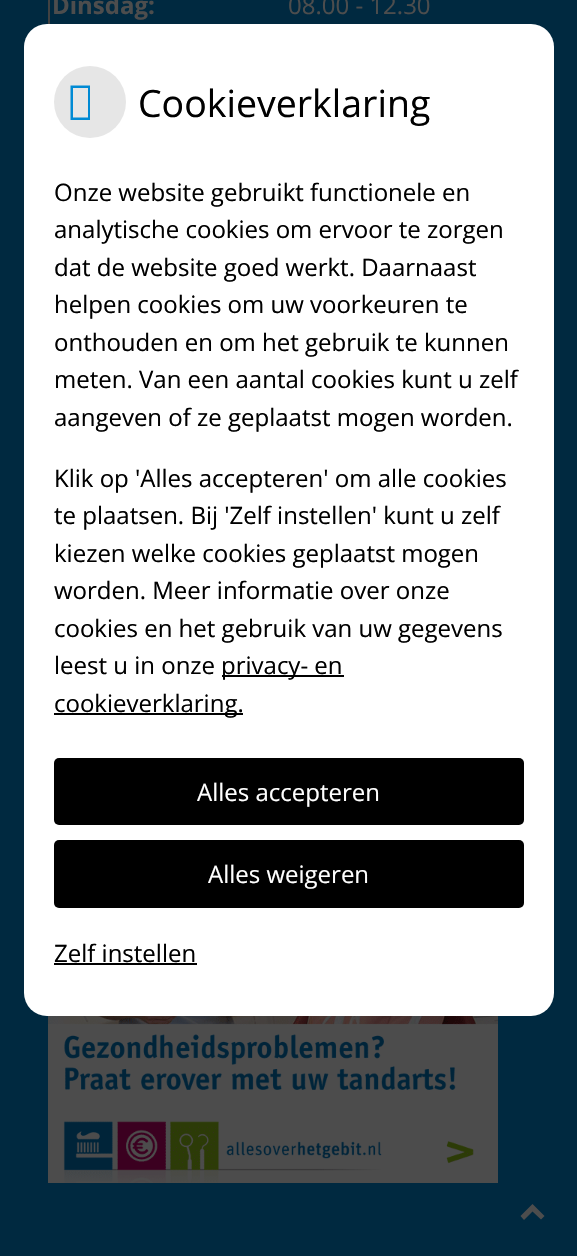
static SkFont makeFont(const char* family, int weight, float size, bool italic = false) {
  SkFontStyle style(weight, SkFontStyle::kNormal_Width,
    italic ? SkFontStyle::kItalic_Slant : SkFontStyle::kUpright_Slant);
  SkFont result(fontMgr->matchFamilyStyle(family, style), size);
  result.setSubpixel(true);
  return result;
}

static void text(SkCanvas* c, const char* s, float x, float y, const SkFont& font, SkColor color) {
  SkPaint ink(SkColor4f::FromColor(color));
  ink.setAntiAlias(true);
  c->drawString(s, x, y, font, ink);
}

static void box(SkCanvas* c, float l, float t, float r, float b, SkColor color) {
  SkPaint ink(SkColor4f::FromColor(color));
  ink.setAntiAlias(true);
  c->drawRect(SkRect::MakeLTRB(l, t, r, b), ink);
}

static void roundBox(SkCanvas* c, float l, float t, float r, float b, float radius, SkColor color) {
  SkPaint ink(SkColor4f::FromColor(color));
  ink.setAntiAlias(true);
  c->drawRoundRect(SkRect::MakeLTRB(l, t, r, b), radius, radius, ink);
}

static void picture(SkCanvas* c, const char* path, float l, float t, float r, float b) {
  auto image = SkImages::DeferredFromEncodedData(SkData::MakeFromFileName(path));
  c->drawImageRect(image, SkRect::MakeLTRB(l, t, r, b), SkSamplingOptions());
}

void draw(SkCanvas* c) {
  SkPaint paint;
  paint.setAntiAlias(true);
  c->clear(0xff002940);
  paint.setStyle(SkPaint::kStroke_Style);
  paint.setStrokeWidth(2);
  paint.setColor(0xff424242);
  c->drawRect(SkRect::MakeLTRB(49, -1, 529, 280), paint);
  SkFont face1 = makeFont("Open Sans", 700, 24);
  text(c, "Dinsdag:", 52, 14, face1, 0xff4d4d4d);
  SkFont face2 = makeFont("Open Sans", 400, 24);
  text(c, "08.00 - 12.30", 288, 14, face2, 0xff4d4d4d);
  picture(c, "img_01.png", 48, 1016, 498, 1183);
  paint.setStyle(SkPaint::kFill_Style);
  paint.setColor(0xff4d4d4d);
  c->drawPath(SkPathBuilder().moveTo(532.5f, 1204).lineTo(544.5f, 1216).lineTo(541, 1219.5f).lineTo(532.5f, 1211.5f).lineTo(524, 1220).lineTo(520.5f, 1216).close().detach(), paint);
  box(c, 528, 0, 530, 75, 0xff002940);
  roundBox(c, 24, 24, 554, 1016, 23, 0xffffffff);
  paint.setColor(0xffe6e6e6);
  c->drawCircle(90, 102, 36, paint);
  paint.setColor(0xff008ad4);
  c->drawPath(SkPathBuilder().moveTo(70.5f, 120).lineTo(70.5f, 85.5f).lineTo(90, 85.5f).lineTo(90, 120).close().moveTo(73, 117.5f).lineTo(88, 117.5f).lineTo(88, 88).lineTo(73, 88).close().detach(), paint);
  SkFont face3 = makeFont("Open Sans", 400, 37.5f);
  text(c, "Cookieverklaring", 138, 117, face3, 0xff000000);
  text(c, "Onze website gebruikt functionele en", 54, 201, face2, 0xff000000);
  text(c, "analytische cookies om ervoor te zorgen", 54, 238, face2, 0xff000000);
  text(c, "dat de website goed werkt. Daarnaast", 54, 276, face2, 0xff000000);
  text(c, "helpen cookies om uw voorkeuren te", 54, 313, face2, 0xff000000);
  text(c, "onthouden en om het gebruik te kunnen", 54, 351, face2, 0xff000000);
  text(c, "meten. Van een aantal cookies kunt u zelf", 54, 388, face2, 0xff000000);
  text(c, "aangeven of ze geplaatst mogen worden.", 54, 426, face2, 0xff000000);
  text(c, "Klik op 'Alles accepteren' om alle cookies", 54, 487, face2, 0xff000000);
  text(c, "te plaatsen. Bij 'Zelf instellen' kunt u zelf", 54, 524, face2, 0xff000000);
  text(c, "kiezen welke cookies geplaatst mogen", 54, 562, face2, 0xff000000);
  text(c, "worden. Meer informatie over onze", 54, 599, face2, 0xff000000);
  text(c, "cookies en het gebruik van uw gegevens", 54, 637, face2, 0xff000000);
  text(c, "leest u in onze", 54, 674, face2, 0xff000000);
  box(c, 222, 675, 344, 677, 0xff000000);
  text(c, "privacy- en", 221, 674, face2, 0xff000000);
  box(c, 54, 713, 243, 715, 0xff000000);
  text(c, "cookieverklaring.", 54, 712, face2, 0xff000000);
  roundBox(c, 54, 758, 524, 825, 5, 0xff000000);
  text(c, "Alles accepteren", 197, 801, face2, 0xffffffff);
  roundBox(c, 54, 840, 524, 908, 5, 0xff000000);
  text(c, "Alles weigeren", 208, 883, face2, 0xffffffff);
  text(c, "Zelf instellen", 54, 962, face2, 0xff000000);
  box(c, 54, 963, 197, 965, 0xff000000);
}
